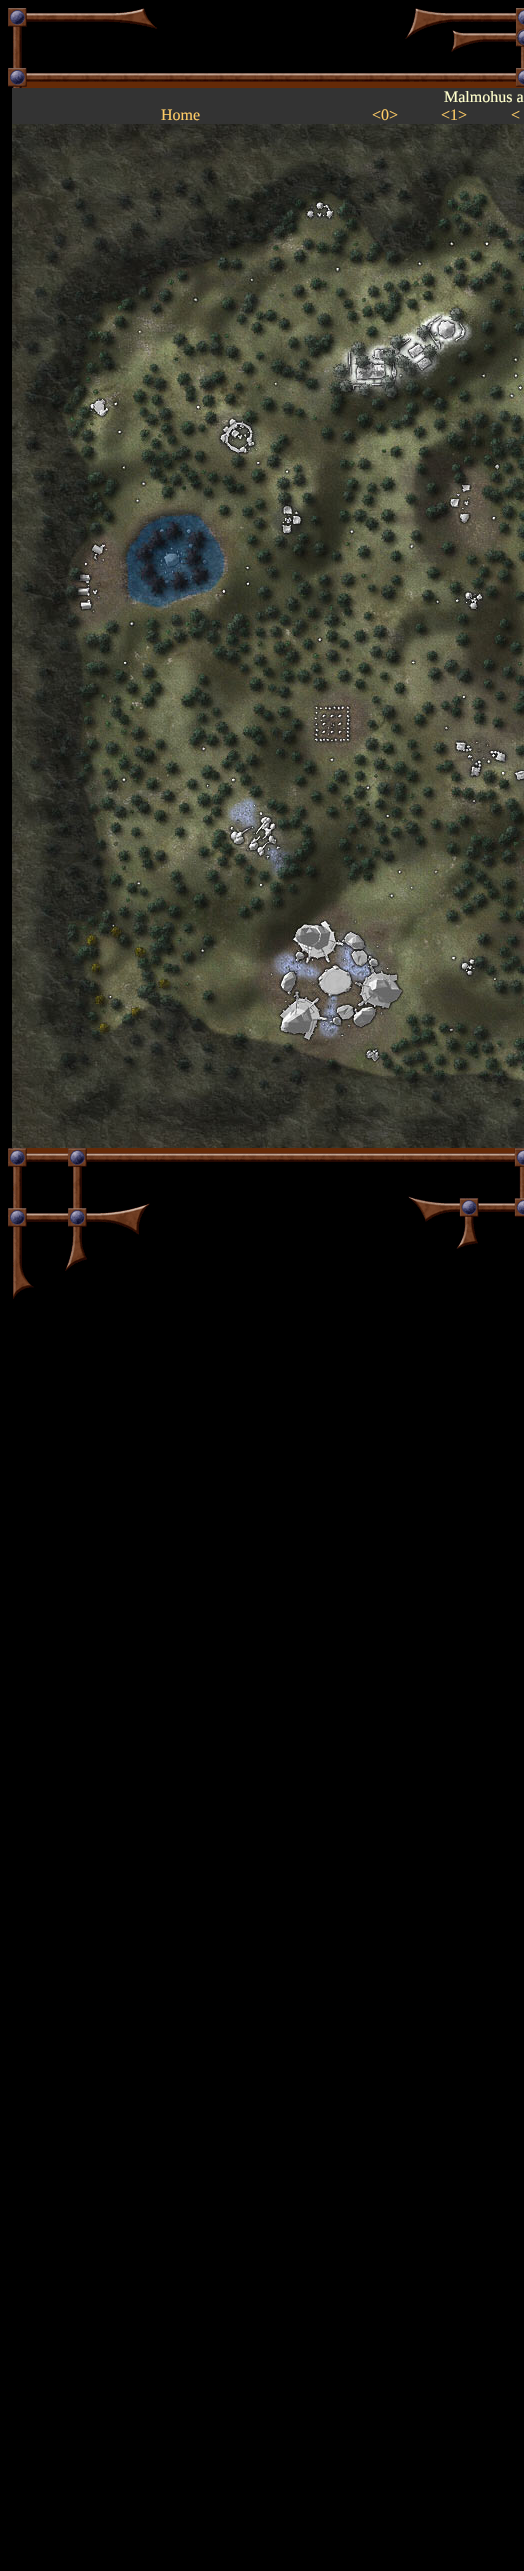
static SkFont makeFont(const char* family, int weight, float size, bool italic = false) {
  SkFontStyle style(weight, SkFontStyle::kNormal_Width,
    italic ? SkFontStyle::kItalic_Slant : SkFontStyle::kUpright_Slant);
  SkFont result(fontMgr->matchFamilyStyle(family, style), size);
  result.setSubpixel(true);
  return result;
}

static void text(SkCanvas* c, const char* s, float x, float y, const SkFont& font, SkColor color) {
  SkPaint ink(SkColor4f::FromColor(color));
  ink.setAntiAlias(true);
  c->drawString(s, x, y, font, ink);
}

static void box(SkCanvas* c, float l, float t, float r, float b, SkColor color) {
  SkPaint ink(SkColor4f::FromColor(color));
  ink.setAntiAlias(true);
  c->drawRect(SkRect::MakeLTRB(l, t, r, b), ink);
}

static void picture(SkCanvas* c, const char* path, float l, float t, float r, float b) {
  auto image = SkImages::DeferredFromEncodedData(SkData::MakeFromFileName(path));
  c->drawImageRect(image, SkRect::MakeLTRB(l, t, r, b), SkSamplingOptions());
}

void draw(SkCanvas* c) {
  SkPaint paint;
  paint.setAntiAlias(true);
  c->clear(0xff000000);
  picture(c, "img_01.png", 8, 8, 158, 88);
  picture(c, "img_02.png", 158, 73, 404, 88);
  picture(c, "img_03.png", 404, 8, 524, 88);
  box(c, 12, 88, 524, 124, 0xff333333);
  SkFont face1 = makeFont("Liberation Serif", 400, 16);
  text(c, "Malmohus a", 444, 102, face1, 0xffffffcc);
  text(c, "Home", 161, 120, face1, 0xffffcc66);
  text(c, "<0>", 372, 120, face1, 0xffffcc66);
  text(c, "<1>", 441, 120, face1, 0xffffcc66);
  text(c, "<", 511, 120, face1, 0xffffcc66);
  picture(c, "img_04.png", 12, 124, 524, 1148);
  picture(c, "img_05.png", 8, 1148, 158, 1299);
  picture(c, "img_06.png", 158, 1148, 404, 1162);
  picture(c, "img_07.png", 404, 1148, 524, 1249);
}
